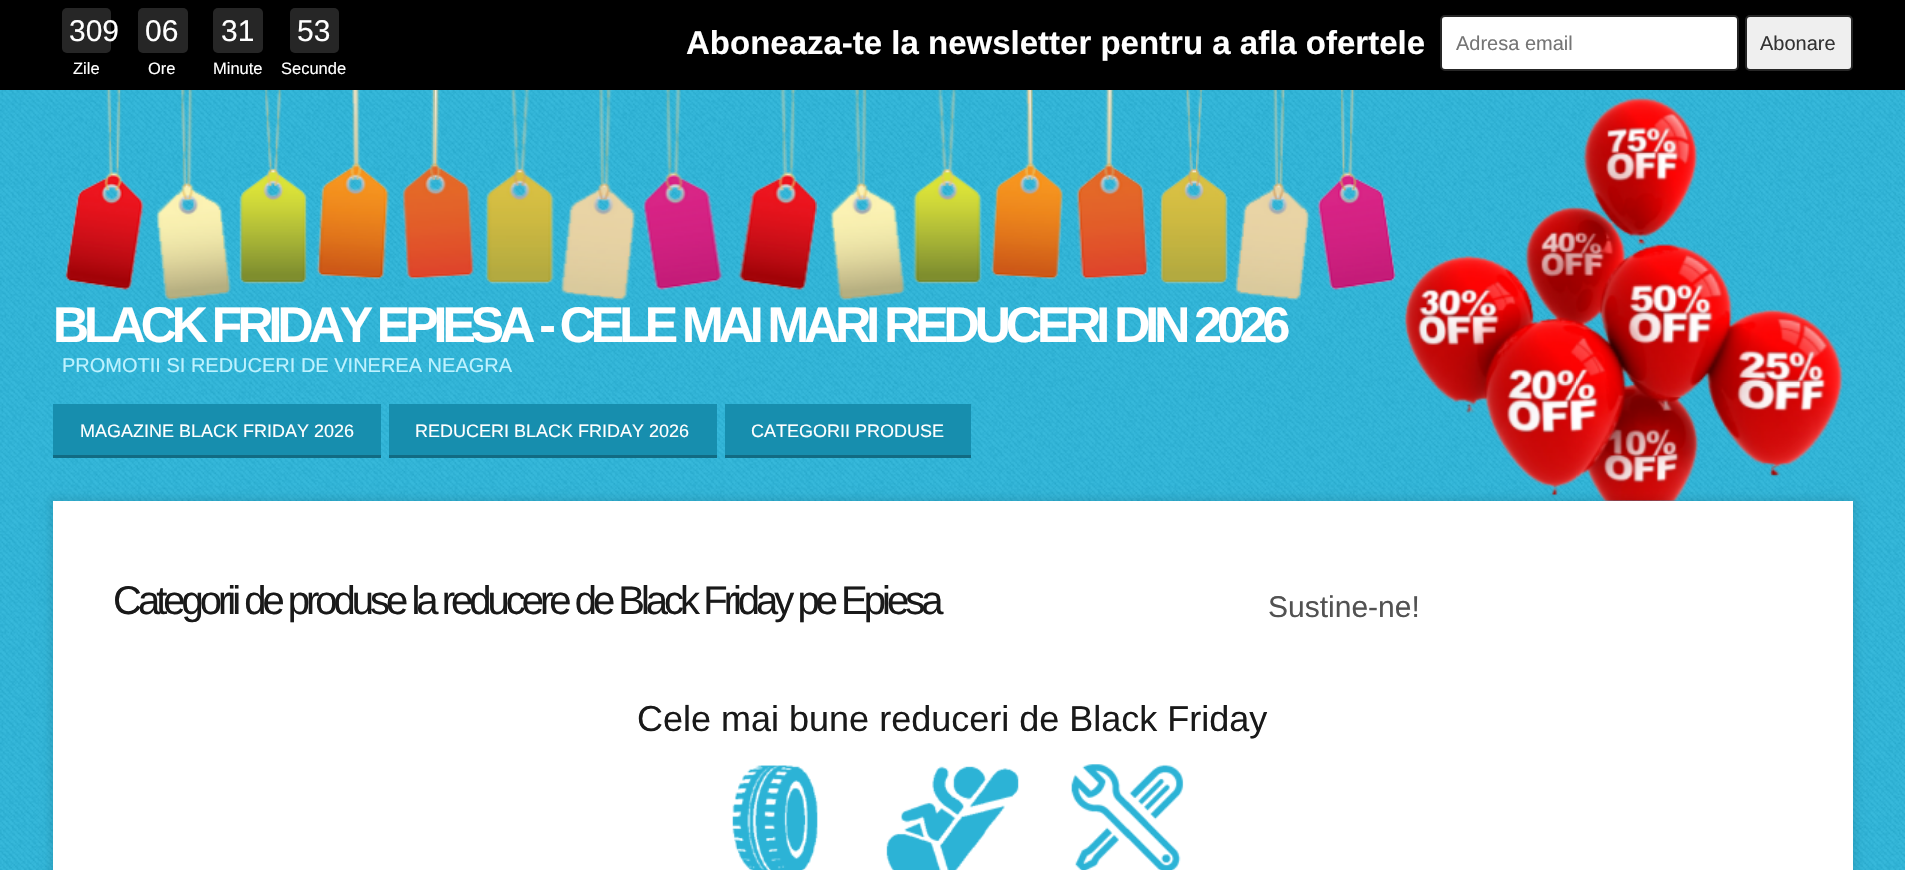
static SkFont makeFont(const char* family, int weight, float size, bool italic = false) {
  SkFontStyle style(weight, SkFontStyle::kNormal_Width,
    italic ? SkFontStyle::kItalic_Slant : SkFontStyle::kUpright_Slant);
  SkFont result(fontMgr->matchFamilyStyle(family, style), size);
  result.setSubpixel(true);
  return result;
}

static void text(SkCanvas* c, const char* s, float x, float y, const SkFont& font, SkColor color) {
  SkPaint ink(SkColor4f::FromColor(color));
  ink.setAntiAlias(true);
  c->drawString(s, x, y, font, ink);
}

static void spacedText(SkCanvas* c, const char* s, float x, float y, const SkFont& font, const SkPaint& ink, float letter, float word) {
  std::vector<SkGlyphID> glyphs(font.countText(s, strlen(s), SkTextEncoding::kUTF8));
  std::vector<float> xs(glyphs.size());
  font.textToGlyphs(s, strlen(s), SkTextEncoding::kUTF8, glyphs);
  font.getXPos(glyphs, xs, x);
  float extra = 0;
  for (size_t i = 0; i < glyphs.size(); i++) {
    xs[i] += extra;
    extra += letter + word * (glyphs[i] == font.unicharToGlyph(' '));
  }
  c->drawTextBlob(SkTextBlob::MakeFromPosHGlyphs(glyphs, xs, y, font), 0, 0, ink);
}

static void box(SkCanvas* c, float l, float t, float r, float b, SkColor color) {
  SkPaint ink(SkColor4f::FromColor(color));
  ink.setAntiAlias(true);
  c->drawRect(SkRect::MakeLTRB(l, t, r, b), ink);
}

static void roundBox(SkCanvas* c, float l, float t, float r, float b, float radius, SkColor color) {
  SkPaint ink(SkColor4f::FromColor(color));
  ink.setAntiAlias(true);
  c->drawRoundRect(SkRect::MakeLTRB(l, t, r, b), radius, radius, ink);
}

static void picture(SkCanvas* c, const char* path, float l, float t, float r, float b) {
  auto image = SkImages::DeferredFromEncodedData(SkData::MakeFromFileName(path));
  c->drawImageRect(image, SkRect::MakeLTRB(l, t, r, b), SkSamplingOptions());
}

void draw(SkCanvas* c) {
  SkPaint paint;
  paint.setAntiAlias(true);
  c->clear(0xffffffff);
  picture(c, "img_01.png", 0, 90, 1905, 870);
  box(c, 0, 0, 1905, 90, 0xff000000);
  roundBox(c, 62, 8, 111, 53, 5, 0xff262626);
  SkFont face1 = makeFont("Liberation Sans", 400, 30);
  text(c, "309", 69, 41, face1, 0xffffffff);
  SkFont face2 = makeFont("Liberation Sans", 400, 16.5f);
  text(c, "Zile", 73, 74, face2, 0xffffffff);
  roundBox(c, 138, 8, 188, 53, 5, 0xff262626);
  text(c, "06", 145, 41, face1, 0xffffffff);
  text(c, "Ore", 148, 74, face2, 0xffffffff);
  roundBox(c, 213, 8, 263, 53, 5, 0xff262626);
  text(c, "31", 221, 41, face1, 0xffffffff);
  text(c, "Minute", 213, 74, face2, 0xffffffff);
  roundBox(c, 290, 8, 339, 53, 5, 0xff262626);
  text(c, "53", 297, 41, face1, 0xffffffff);
  text(c, "Secunde", 281, 74, face2, 0xffffffff);
  SkFont face3 = makeFont("Liberation Sans", 700, 33);
  text(c, "Aboneaza-te la newsletter pentru a afla ofertele", 686, 54, face3, 0xffffffff);
  paint.setColor(0xffffffff);
  c->drawRoundRect(SkRect::MakeLTRB(1441, 16, 1738, 70), 4, 4, paint);
  paint.setStyle(SkPaint::kStroke_Style);
  paint.setStrokeWidth(2);
  paint.setColor(0xff262626);
  c->drawRoundRect(SkRect::MakeLTRB(1441, 16, 1738, 70), 4, 4, paint);
  SkFont face4 = makeFont("Liberation Sans", 400, 20);
  text(c, "Adresa email", 1456, 50, face4, 0xff757575);
  paint.setStyle(SkPaint::kFill_Style);
  paint.setColor(0xffefefef);
  c->drawRoundRect(SkRect::MakeLTRB(1746, 16, 1852, 70), 4, 4, paint);
  paint.setStyle(SkPaint::kStroke_Style);
  paint.setColor(0xff262626);
  c->drawRoundRect(SkRect::MakeLTRB(1746, 16, 1852, 70), 4, 4, paint);
  text(c, "Abonare", 1760, 50, face4, 0xff333333);
  picture(c, "img_02.png", 65, 90, 1844, 501);
  SkFont face5 = makeFont("Liberation Sans", 700, 50);
  paint.setStyle(SkPaint::kFill_Style);
  paint.setColor(0xffffffff);
  spacedText(c, "BLACK FRIDAY EPIESA - CELE MAI MARI REDUCERI DIN 2026", 53, 342, face5, paint, -5, 0);
  text(c, "PROMOTII SI REDUCERI DE VINEREA NEAGRA", 62, 372, face4, 0xffbdf2ff);
  box(c, 53, 404, 381, 455, 0xff178eae);
  box(c, 53, 455, 381, 458, 0xff116b83);
  SkFont face6 = makeFont("Liberation Sans", 400, 18);
  text(c, "MAGAZINE BLACK FRIDAY 2026", 80, 437, face6, 0xffffffff);
  box(c, 389, 404, 717, 455, 0xff178eae);
  box(c, 389, 455, 717, 458, 0xff116b83);
  text(c, "REDUCERI BLACK FRIDAY 2026", 415, 437, face6, 0xffffffff);
  box(c, 725, 404, 971, 455, 0xff178eae);
  box(c, 725, 455, 971, 458, 0xff116b83);
  text(c, "CATEGORII PRODUSE", 751, 437, face6, 0xffffffff);
  paint.setColor(0x1a000000);
  paint.setMaskFilter(SkMaskFilter::MakeBlur(kNormal_SkBlurStyle, 4));
  c->drawRect(SkRect::MakeLTRB(50, 498, 1856, 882), paint);
  paint.setMaskFilter(nullptr);
  box(c, 53, 501, 1853, 870, 0xffffffff);
  SkFont face7 = makeFont("Liberation Sans", 400, 40);
  paint.setColor(0xff191919);
  spacedText(c, "Categorii de produse la reducere de Black Friday pe Epiesa", 113, 614, face7, paint, -4, 0);
  text(c, "Sustine-ne!", 1268, 617, face1, 0xff525252);
  SkFont face8 = makeFont("Liberation Sans", 400, 36);
  text(c, "Cele mai bune reduceri de Black Friday", 637, 731, face8, 0xff191919);
  picture(c, "img_03.png", 732, 765, 818, 870);
  picture(c, "img_04.png", 886, 766, 1019, 870);
  picture(c, "img_05.png", 1071, 764, 1184, 870);
}
